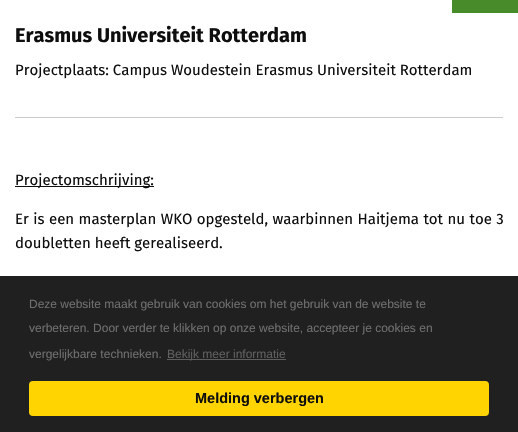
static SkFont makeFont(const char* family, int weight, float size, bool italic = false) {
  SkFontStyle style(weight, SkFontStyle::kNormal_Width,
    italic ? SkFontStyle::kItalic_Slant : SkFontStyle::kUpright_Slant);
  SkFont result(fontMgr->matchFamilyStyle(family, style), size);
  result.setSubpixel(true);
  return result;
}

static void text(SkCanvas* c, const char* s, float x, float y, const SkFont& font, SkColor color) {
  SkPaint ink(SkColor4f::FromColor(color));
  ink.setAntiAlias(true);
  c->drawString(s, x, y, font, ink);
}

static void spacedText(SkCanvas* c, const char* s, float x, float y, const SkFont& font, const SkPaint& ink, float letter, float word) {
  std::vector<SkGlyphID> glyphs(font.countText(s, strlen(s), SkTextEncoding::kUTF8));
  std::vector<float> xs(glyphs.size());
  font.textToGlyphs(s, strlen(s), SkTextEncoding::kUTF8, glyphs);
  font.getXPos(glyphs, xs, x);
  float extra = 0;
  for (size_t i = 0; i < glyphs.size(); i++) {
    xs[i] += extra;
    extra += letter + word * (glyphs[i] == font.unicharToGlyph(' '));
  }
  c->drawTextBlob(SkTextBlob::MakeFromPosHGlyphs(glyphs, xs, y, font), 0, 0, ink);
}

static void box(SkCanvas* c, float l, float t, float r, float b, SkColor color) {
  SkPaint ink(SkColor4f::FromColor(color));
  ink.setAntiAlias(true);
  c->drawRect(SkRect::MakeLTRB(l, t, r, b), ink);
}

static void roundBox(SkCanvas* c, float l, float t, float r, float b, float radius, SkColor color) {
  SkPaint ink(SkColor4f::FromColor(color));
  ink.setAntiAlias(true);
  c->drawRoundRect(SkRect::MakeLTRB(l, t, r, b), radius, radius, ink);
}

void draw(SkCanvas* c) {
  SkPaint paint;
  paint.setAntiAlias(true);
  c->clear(0xffffffff);
  box(c, 452, 0, 518, 13, 0xff488b2a);
  SkFont face1 = makeFont("Fira Sans", 700, 20);
  text(c, "Erasmus Universiteit Rotterdam", 15, 42, face1, 0xff0e0e0e);
  SkFont face2 = makeFont("Fira Sans", 400, 15);
  text(c, "Projectplaats: Campus Woudestein Erasmus Universiteit Rotterdam", 15, 75, face2, 0xff0e0e0e);
  box(c, 15, 117, 503, 118, 0xffcccccc);
  box(c, 15, 186, 154, 187, 0xff0e0e0e);
  text(c, "Projectomschrijving:", 15, 185, face2, 0xff0e0e0e);
  paint.setColor(0xff0e0e0e);
  spacedText(c, "Er is een masterplan WKO opgesteld, waarbinnen Haitjema tot nu toe 3", 15, 224, face2, paint, 0, 0.5f);
  text(c, "doubletten heeft gerealiseerd.", 15, 248, face2, 0xff0e0e0e);
  box(c, 0, 276, 518, 432, 0xff202020);
  SkFont face3 = makeFont("Liberation Sans", 400, 12);
  text(c, "Deze website maakt gebruik van cookies om het gebruik van de website te", 29, 308, face3, 0xff6f6f6f);
  text(c, "verbeteren. Door verder te klikken op onze website, accepteer je cookies en", 29, 332, face3, 0xff6f6f6f);
  text(c, "vergelijkbare technieken.", 29, 358, face3, 0xff6f6f6f);
  box(c, 167, 359, 286, 360, 0xff5f5f5f);
  text(c, "Bekijk meer informatie", 167, 358, face3, 0xff5f5f5f);
  roundBox(c, 29, 381, 489, 416, 4, 0xffffd401);
  SkFont face4 = makeFont("Liberation Sans", 700, 14.5f);
  text(c, "Melding verbergen", 195, 403, face4, 0xff0e0e0e);
}
